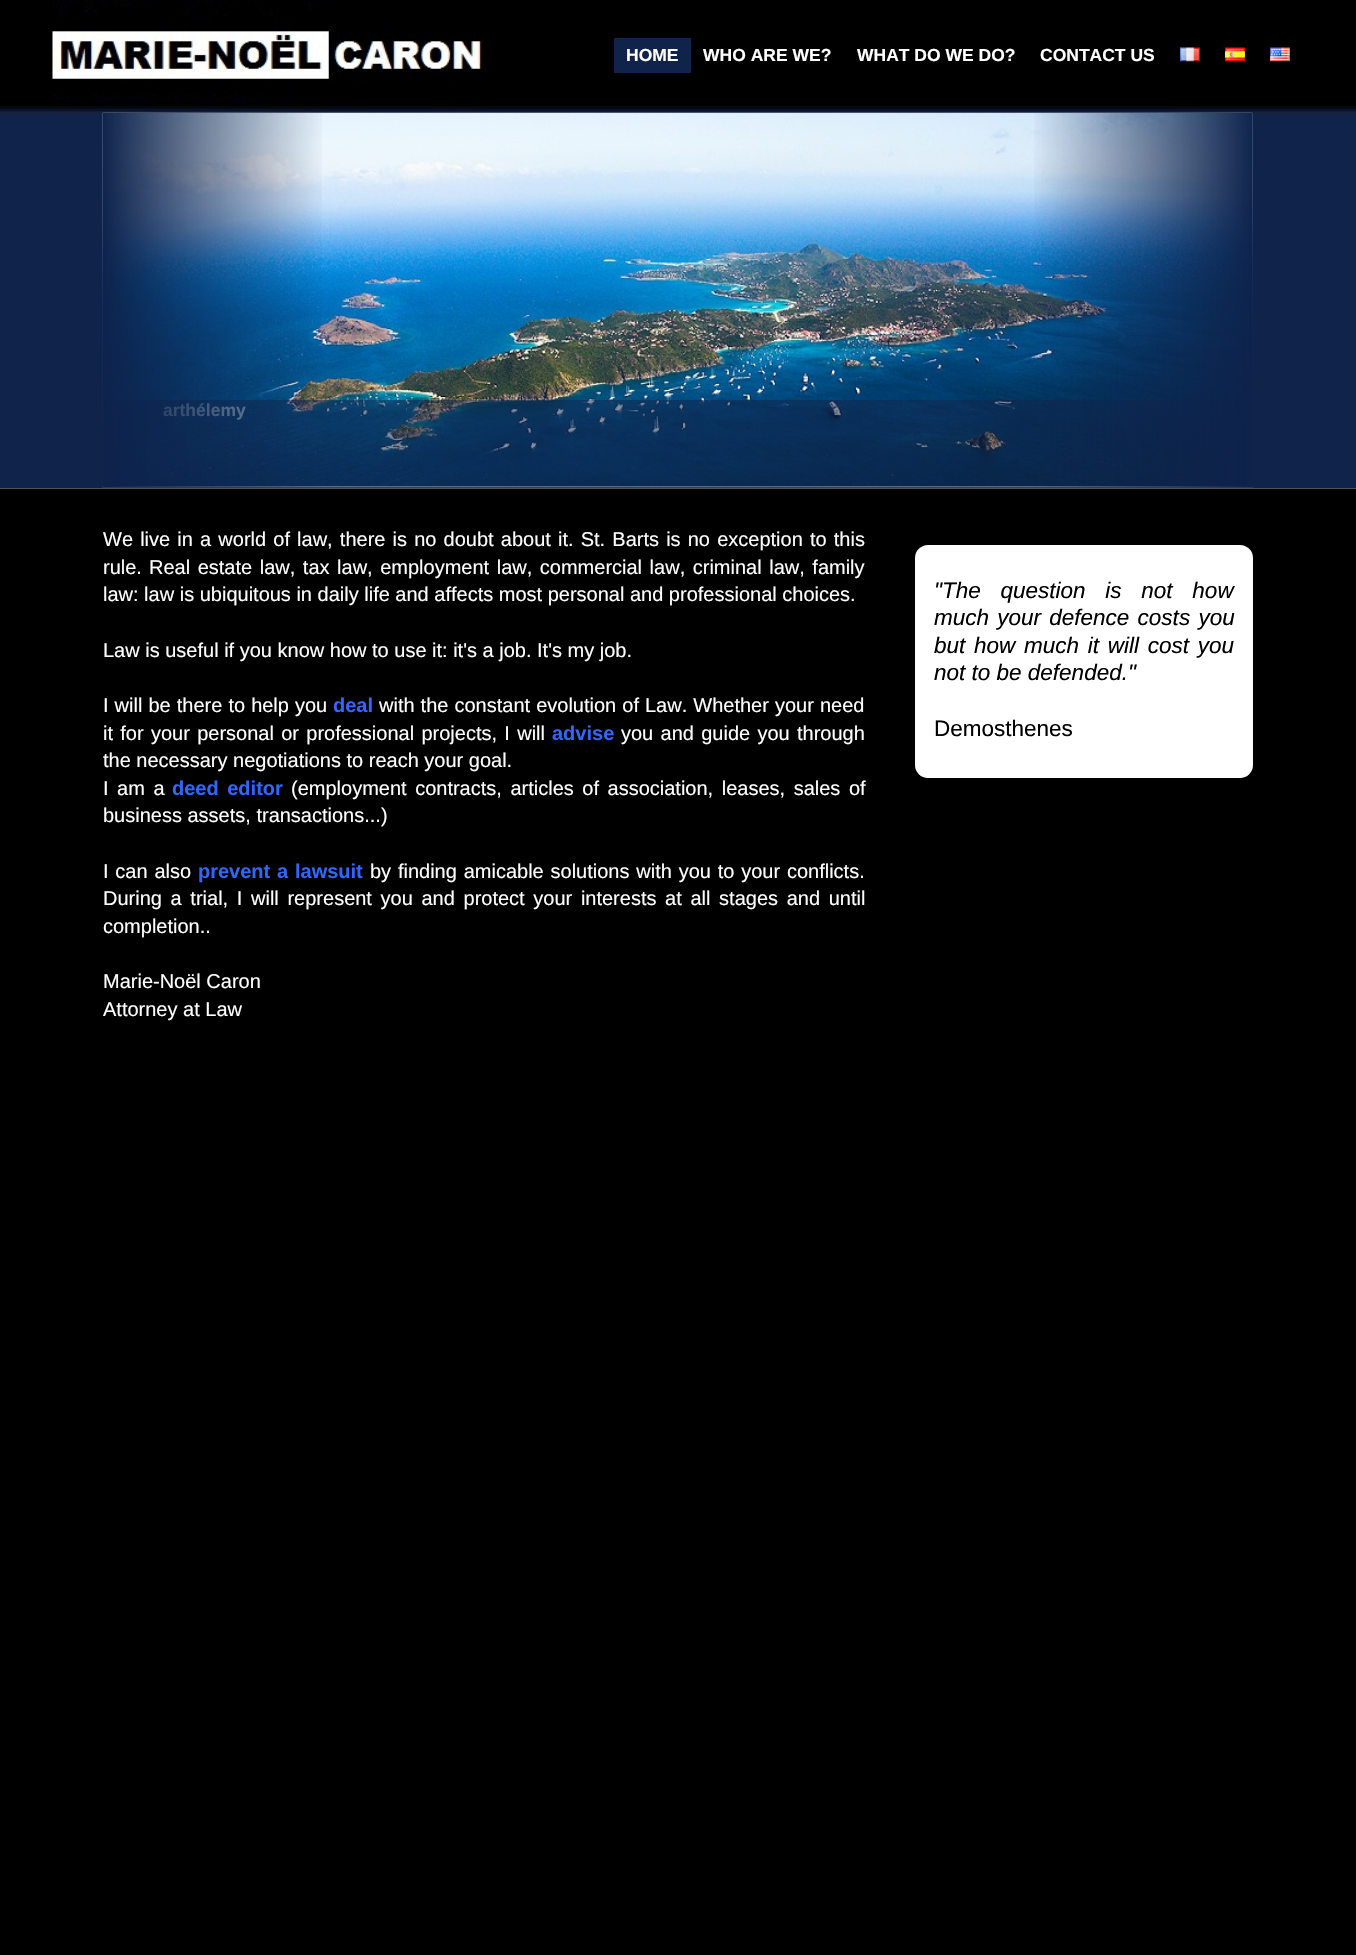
static SkFont makeFont(const char* family, int weight, float size, bool italic = false) {
  SkFontStyle style(weight, SkFontStyle::kNormal_Width,
    italic ? SkFontStyle::kItalic_Slant : SkFontStyle::kUpright_Slant);
  SkFont result(fontMgr->matchFamilyStyle(family, style), size);
  result.setSubpixel(true);
  return result;
}

static void text(SkCanvas* c, const char* s, float x, float y, const SkFont& font, SkColor color) {
  SkPaint ink(SkColor4f::FromColor(color));
  ink.setAntiAlias(true);
  c->drawString(s, x, y, font, ink);
}

static void spacedText(SkCanvas* c, const char* s, float x, float y, const SkFont& font, const SkPaint& ink, float letter, float word) {
  std::vector<SkGlyphID> glyphs(font.countText(s, strlen(s), SkTextEncoding::kUTF8));
  std::vector<float> xs(glyphs.size());
  font.textToGlyphs(s, strlen(s), SkTextEncoding::kUTF8, glyphs);
  font.getXPos(glyphs, xs, x);
  float extra = 0;
  for (size_t i = 0; i < glyphs.size(); i++) {
    xs[i] += extra;
    extra += letter + word * (glyphs[i] == font.unicharToGlyph(' '));
  }
  c->drawTextBlob(SkTextBlob::MakeFromPosHGlyphs(glyphs, xs, y, font), 0, 0, ink);
}

static void box(SkCanvas* c, float l, float t, float r, float b, SkColor color) {
  SkPaint ink(SkColor4f::FromColor(color));
  ink.setAntiAlias(true);
  c->drawRect(SkRect::MakeLTRB(l, t, r, b), ink);
}

static void roundBox(SkCanvas* c, float l, float t, float r, float b, float radius, SkColor color) {
  SkPaint ink(SkColor4f::FromColor(color));
  ink.setAntiAlias(true);
  c->drawRoundRect(SkRect::MakeLTRB(l, t, r, b), radius, radius, ink);
}

static void picture(SkCanvas* c, const char* path, float l, float t, float r, float b) {
  auto image = SkImages::DeferredFromEncodedData(SkData::MakeFromFileName(path));
  c->drawImageRect(image, SkRect::MakeLTRB(l, t, r, b), SkSamplingOptions());
}

void draw(SkCanvas* c) {
  SkPaint paint;
  paint.setAntiAlias(true);
  c->clear(0xff000000);
  box(c, 0, 112, 1356, 113, 0xff202020);
  picture(c, "img_01.png", 0, 0, 1356, 113);
  picture(c, "img_02.png", 52, 0, 1202, 113);
  box(c, 614, 38, 691, 73, 0xff0f234b);
  SkFont face1 = makeFont("Liberation Sans", 700, 17.5f);
  text(c, "HOME", 626, 61, face1, 0xffffffff);
  text(c, "WHO ARE WE?", 703, 61, face1, 0xffffffff);
  text(c, "WHAT DO WE DO?", 857, 61, face1, 0xffffffff);
  text(c, "CONTACT US", 1040, 61, face1, 0xffffffff);
  picture(c, "img_03.png", 1180, 47, 1200, 62);
  picture(c, "img_04.png", 1225, 47, 1245, 62);
  picture(c, "img_05.png", 1270, 47, 1290, 62);
  box(c, 0, 113, 1356, 488, 0xff0f234b);
  picture(c, "img_08.png", 102, 112, 1253, 488);
  box(c, 103, 400, 1253, 488, 0x800f234b);
  text(c, "arthélemy", 163, 416, face1, 0xff849ab2);
  picture(c, "img_06.png", 102, 112, 322, 488);
  picture(c, "img_07.png", 1034, 112, 1253, 488);
  box(c, 0, 488, 1356, 489, 0xff525252);
  SkFont face2 = makeFont("Liberation Sans", 400, 20);
  paint.setColor(0xffffffff);
  spacedText(c, "We live in a world of law, there is no doubt about it. St. Barts is no exception to this", 103, 546, face2, paint, 0, 1.6f);
  text(c, "rule.", 103, 574, face2, 0xffffffff);
  spacedText(c, "Real estate law, tax law, employment law, commercial law, criminal law, family", 149, 574, face2, paint, 0, 2);
  text(c, "law: law is ubiquitous in daily life and affects most personal and professional choices.", 103, 601, face2, 0xffffffff);
  text(c, "Law is useful if you know how to use it: it's a job. It's my job.", 103, 657, face2, 0xffffffff);
  spacedText(c, "I will be there to help you", 103, 712, face2, paint, 0, 0.5f);
  SkFont face3 = makeFont("Liberation Sans", 700, 20);
  text(c, "deal", 333, 712, face3, 0xff3366ff);
  spacedText(c, "with the constant evolution of Law. Whether your need", 379, 712, face2, paint, 0, 0.5f);
  spacedText(c, "it for your personal or professional projects, I will", 103, 740, face2, paint, 0, 1.75f);
  text(c, "advise", 552, 740, face3, 0xff3366ff);
  spacedText(c, "you and guide you through", 621, 740, face2, paint, 0, 1.75f);
  text(c, "the necessary negotiations to reach your goal.", 103, 767, face2, 0xffffffff);
  spacedText(c, "I am a", 103, 795, face2, paint, 0, 3);
  paint.setColor(0xff3366ff);
  spacedText(c, "deed editor", 172, 795, face3, paint, 0, 3);
  paint.setColor(0xffffffff);
  spacedText(c, "(employment contracts, articles of association, leases, sales of", 291, 795, face2, paint, 0, 3);
  text(c, "business assets, transactions...)", 103, 822, face2, 0xffffffff);
  spacedText(c, "I can also", 103, 878, face2, paint, 0, 1.25f);
  paint.setColor(0xff3366ff);
  spacedText(c, "prevent a lawsuit", 198, 878, face3, paint, 0, 1.25f);
  paint.setColor(0xffffffff);
  spacedText(c, "by finding amicable solutions with you to your conflicts.", 370, 878, face2, paint, 0, 1.25f);
  spacedText(c, "During a trial, I will represent you and protect your interests at all stages and until", 103, 905, face2, paint, 0, 3.1f);
  text(c, "completion..", 103, 933, face2, 0xffffffff);
  text(c, "Marie-Noël Caron", 103, 988, face2, 0xffffffff);
  text(c, "Attorney at Law", 103, 1016, face2, 0xffffffff);
  roundBox(c, 915, 545, 1253, 778, 13, 0xffffffff);
  SkFont face4 = makeFont("Liberation Sans", 400, 22.5f, true);
  paint.setColor(0xff000000);
  spacedText(c, "\"The question is not how", 934, 598, face4, paint, 0, 13.5f);
  spacedText(c, "much your defence costs you", 934, 625, face4, paint, 0, 2);
  spacedText(c, "but how much it will cost you", 934, 653, face4, paint, 0, 2.5f);
  text(c, "not to be defended.\"", 934, 680, face4, 0xff000000);
  SkFont face5 = makeFont("Liberation Sans", 400, 22.5f);
  text(c, "Demosthenes", 934, 736, face5, 0xff000000);
}
